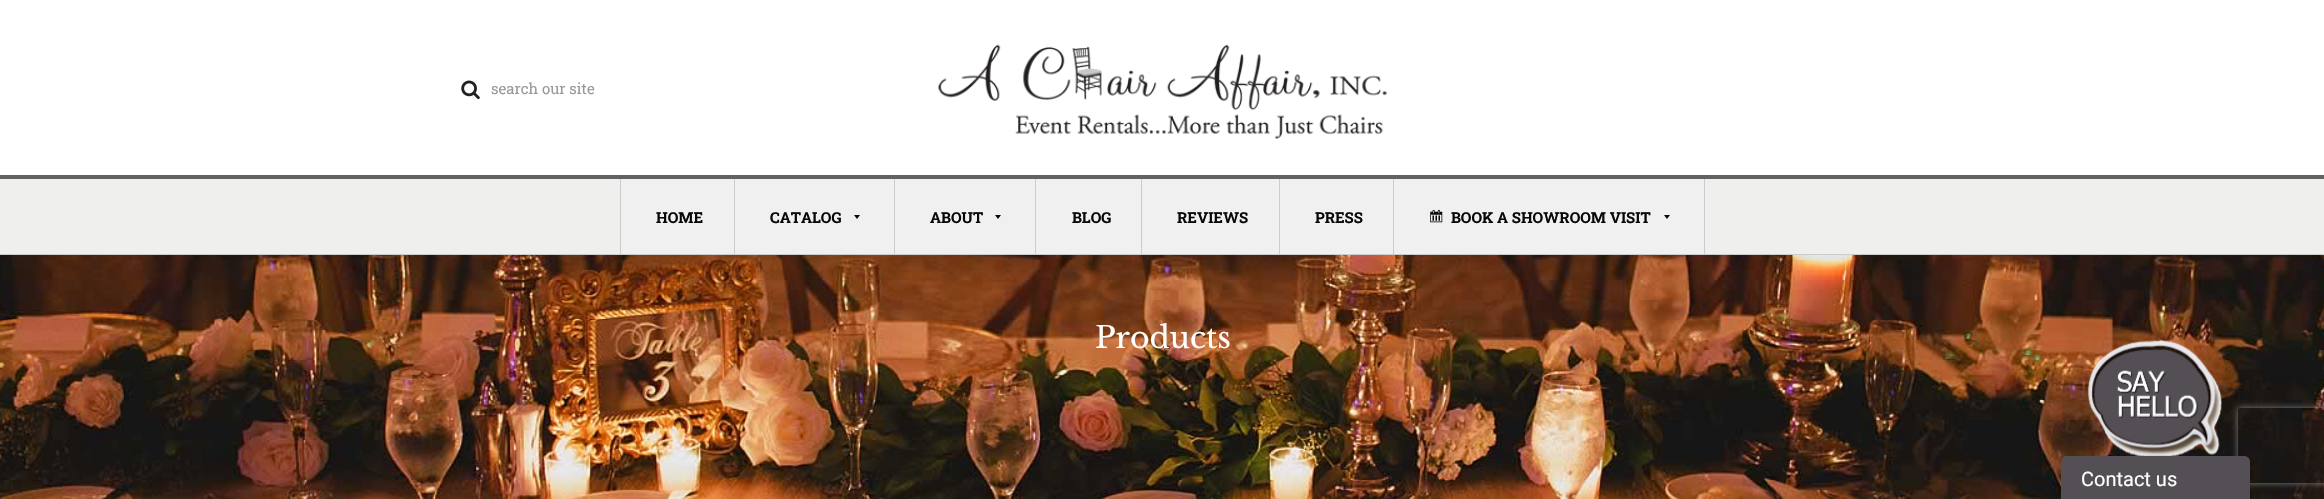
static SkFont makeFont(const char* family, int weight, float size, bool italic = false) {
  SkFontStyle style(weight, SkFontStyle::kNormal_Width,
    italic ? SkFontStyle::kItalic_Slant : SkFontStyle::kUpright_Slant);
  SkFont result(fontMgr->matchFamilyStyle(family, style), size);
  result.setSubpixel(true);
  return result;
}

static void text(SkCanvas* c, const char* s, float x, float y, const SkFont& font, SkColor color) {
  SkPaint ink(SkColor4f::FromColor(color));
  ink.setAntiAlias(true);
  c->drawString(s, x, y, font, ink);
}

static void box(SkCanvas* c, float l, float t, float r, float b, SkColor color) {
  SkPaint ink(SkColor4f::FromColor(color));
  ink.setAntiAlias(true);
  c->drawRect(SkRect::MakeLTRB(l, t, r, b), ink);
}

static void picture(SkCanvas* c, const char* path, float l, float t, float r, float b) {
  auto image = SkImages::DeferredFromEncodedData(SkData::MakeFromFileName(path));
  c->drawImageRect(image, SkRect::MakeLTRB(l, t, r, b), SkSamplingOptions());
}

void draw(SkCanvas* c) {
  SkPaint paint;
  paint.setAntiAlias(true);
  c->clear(0xffffffff);
  picture(c, "img_01.png", 461, 80, 480, 100);
  SkFont face1 = makeFont("Roboto Slab", 400, 15);
  text(c, "search our site", 491, 94, face1, 0xff999999);
  picture(c, "img_02.png", 938, 44, 1387, 139);
  box(c, 0, 179, 2324, 254, 0xffefefed);
  box(c, 0, 175, 2324, 179, 0xff626262);
  box(c, 0, 254, 2324, 255, 0xffcccccc);
  box(c, 620, 179, 621, 254, 0xffcccccc);
  box(c, 621, 179, 734, 254, 0xfff0f0f0);
  box(c, 734, 179, 735, 254, 0xffcccccc);
  SkFont face2 = makeFont("Roboto Slab", 700, 15);
  text(c, "HOME", 656, 223, face2, 0xff080808);
  box(c, 735, 179, 894, 254, 0xfff0f0f0);
  box(c, 894, 179, 895, 254, 0xffcccccc);
  text(c, "CATALOG", 770, 223, face2, 0xff080808);
  paint.setColor(0xff080808);
  c->drawPath(SkPathBuilder().moveTo(860, 215).lineTo(857, 219).lineTo(854, 215).close().detach(), paint);
  box(c, 895, 179, 1035, 254, 0xfff0f0f0);
  box(c, 1035, 179, 1036, 254, 0xffcccccc);
  text(c, "ABOUT", 930, 223, face2, 0xff080808);
  c->drawPath(SkPathBuilder().moveTo(1001, 215).lineTo(998, 219).lineTo(995, 215).close().detach(), paint);
  box(c, 1036, 179, 1141, 254, 0xfff0f0f0);
  box(c, 1141, 179, 1142, 254, 0xffcccccc);
  text(c, "BLOG", 1072, 223, face2, 0xff080808);
  box(c, 1143, 179, 1279, 254, 0xfff0f0f0);
  box(c, 1279, 179, 1280, 254, 0xffcccccc);
  text(c, "REVIEWS", 1177, 223, face2, 0xff080808);
  box(c, 1280, 179, 1393, 254, 0xfff0f0f0);
  box(c, 1393, 179, 1394, 254, 0xffcccccc);
  text(c, "PRESS", 1315, 223, face2, 0xff080808);
  box(c, 1394, 179, 1704, 254, 0xfff0f0f0);
  box(c, 1704, 179, 1705, 254, 0xffcccccc);
  picture(c, "img_03.png", 1430, 209, 1443, 223);
  text(c, "BOOK A SHOWROOM VISIT", 1451, 223, face2, 0xff080808);
  c->drawPath(SkPathBuilder().moveTo(1670, 215).lineTo(1667, 219).lineTo(1664, 215).close().detach(), paint);
  picture(c, "img_04.png", 0, 255, 2324, 499);
  SkFont face3 = makeFont("Libre Baskerville", 400, 30);
  text(c, "Products", 1095, 348, face3, 0xffffffff);
  paint.setColor(0x66000000);
  paint.setMaskFilter(SkMaskFilter::MakeBlur(kNormal_SkBlurStyle, 2.5f));
  c->drawRoundRect(SkRect::MakeLTRB(2063, 458, 2251, 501), 6, 6, paint);
  paint.setMaskFilter(nullptr);
  picture(c, "img_05.png", 2088, 339, 2222, 456);
  c->save();
  c->clipPath(SkPathBuilder(SkPathFillType::kEvenOdd).moveTo(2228, 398).lineTo(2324, 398).lineTo(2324, 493).lineTo(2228, 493).close().moveTo(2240.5f, 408).lineTo(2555.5f, 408).cubicTo(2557, 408, 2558, 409, 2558, 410.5f).lineTo(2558, 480.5f).cubicTo(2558, 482, 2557, 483, 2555.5f, 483).lineTo(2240.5f, 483).cubicTo(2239, 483, 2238, 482, 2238, 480.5f).lineTo(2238, 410.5f).cubicTo(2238, 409, 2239, 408, 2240.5f, 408).close().detach(), true);
  paint.setColor(0xff808080);
  paint.setMaskFilter(SkMaskFilter::MakeBlur(kNormal_SkBlurStyle, 3));
  c->drawRoundRect(SkRect::MakeLTRB(2238, 408, 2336, 483), 2.5f, 2.5f, paint);
  paint.setMaskFilter(nullptr);
  c->restore();
  paint.setColor(0xff544f55);
  c->drawPath(SkPathBuilder().moveTo(2067, 456).lineTo(2244, 456).cubicTo(2247.5f, 456, 2250, 458.5f, 2250, 462).lineTo(2250, 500).lineTo(2061, 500).lineTo(2061, 462).cubicTo(2061, 458.5f, 2063.5f, 456, 2067, 456).close().detach(), paint);
  SkFont face4 = makeFont("Roboto", 400, 20);
  text(c, "Contact us", 2081, 486, face4, 0xffffffff);
}
